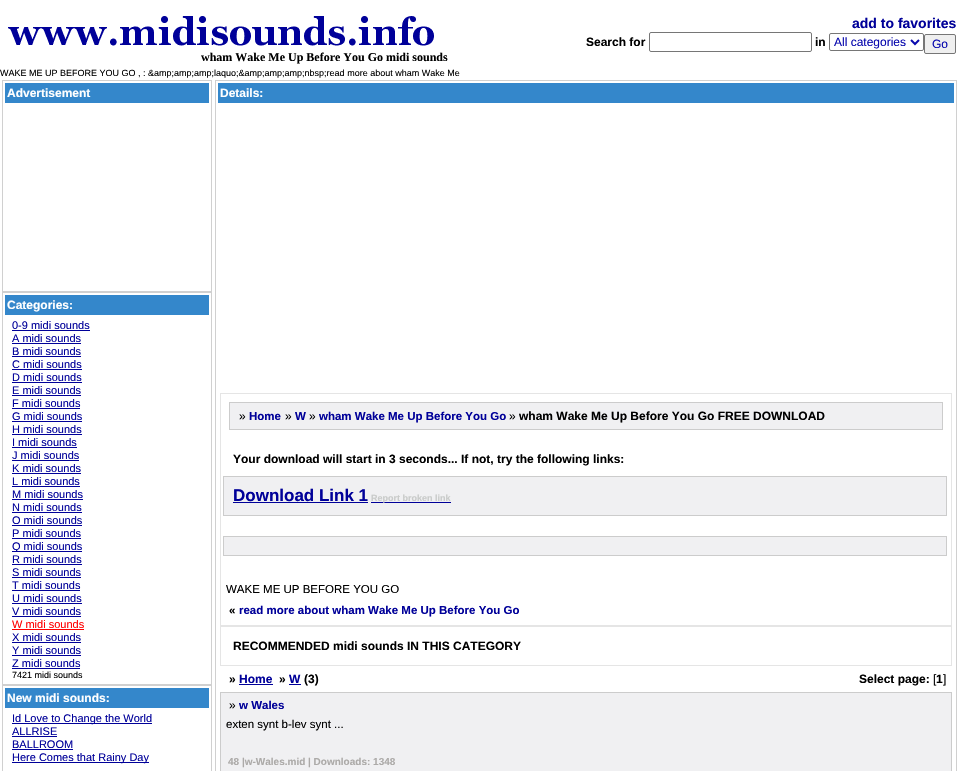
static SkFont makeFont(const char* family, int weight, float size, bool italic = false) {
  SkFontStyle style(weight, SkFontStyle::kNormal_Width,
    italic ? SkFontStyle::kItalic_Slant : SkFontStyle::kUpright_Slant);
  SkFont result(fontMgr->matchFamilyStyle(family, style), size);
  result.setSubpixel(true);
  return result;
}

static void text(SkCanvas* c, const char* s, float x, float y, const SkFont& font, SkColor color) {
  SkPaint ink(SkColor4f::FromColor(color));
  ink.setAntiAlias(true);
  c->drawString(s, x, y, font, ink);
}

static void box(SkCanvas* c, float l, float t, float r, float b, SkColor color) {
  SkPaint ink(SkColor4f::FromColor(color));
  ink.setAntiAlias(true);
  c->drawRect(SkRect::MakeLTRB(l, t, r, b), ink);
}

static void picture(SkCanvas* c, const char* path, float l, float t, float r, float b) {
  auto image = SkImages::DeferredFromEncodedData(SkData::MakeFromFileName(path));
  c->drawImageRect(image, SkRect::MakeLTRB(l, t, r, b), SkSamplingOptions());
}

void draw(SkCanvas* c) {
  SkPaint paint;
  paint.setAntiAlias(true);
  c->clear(0xffffffff);
  SkFont face1 = makeFont("Liberation Sans", 700, 14);
  text(c, "add to favorites", 852, 28, face1, 0xff000099);
  SkFont face2 = makeFont("Liberation Sans", 700, 12);
  text(c, "Search for", 586, 46, face2, 0xff000000);
  paint.setStyle(SkPaint::kStroke_Style);
  paint.setStrokeWidth(1);
  paint.setColor(0xff767676);
  c->drawRoundRect(SkRect::MakeLTRB(649.5f, 32.5f, 811.5f, 51.5f), 1.5f, 1.5f, paint);
  text(c, "in", 815, 46, face2, 0xff000000);
  c->drawRoundRect(SkRect::MakeLTRB(829.5f, 33.5f, 923.5f, 50.5f), 1.5f, 1.5f, paint);
  paint.setStrokeWidth(2);
  paint.setColor(0xff0909ae);
  c->drawPath(SkPathBuilder().moveTo(911, 40).lineTo(915, 44).lineTo(919, 40).detach(), paint);
  SkFont face3 = makeFont("Liberation Sans", 400, 12);
  text(c, "All categories", 834, 46, face3, 0xff0909ae);
  paint.setStyle(SkPaint::kFill_Style);
  paint.setColor(0xffefefef);
  c->drawRoundRect(SkRect::MakeLTRB(924.5f, 34.5f, 955.5f, 53.5f), 1.5f, 1.5f, paint);
  paint.setStyle(SkPaint::kStroke_Style);
  paint.setStrokeWidth(1);
  paint.setColor(0xff767676);
  c->drawRoundRect(SkRect::MakeLTRB(924.5f, 34.5f, 955.5f, 53.5f), 1.5f, 1.5f, paint);
  text(c, "Go", 932, 48, face3, 0xff0909ae);
  picture(c, "img_01.png", 8, 16, 434, 46);
  SkFont face4 = makeFont("Liberation Serif", 700, 12);
  text(c, "wham Wake Me Up Before You Go midi sounds", 201, 61, face4, 0xff000000);
  SkFont face5 = makeFont("Liberation Sans", 400, 9);
  text(c, "WAKE ME UP BEFORE YOU GO , : &amp;amp;amp;laquo;&amp;amp;amp;nbsp;read more about wham Wake Me", 0, 76, face5, 0xff000000);
  paint.setColor(0xffd0d0d0);
  c->drawRect(SkRect::MakeLTRB(2.5f, 80.5f, 211.5f, 291.5f), paint);
  box(c, 5, 83, 209, 103, 0xff3487cb);
  text(c, "Advertisement", 7, 97, face2, 0xffffffff);
  c->drawRect(SkRect::MakeLTRB(2.5f, 292.5f, 211.5f, 684.5f), paint);
  box(c, 5, 295, 209, 315, 0xff3487cb);
  text(c, "Categories:", 7, 309, face2, 0xffffffff);
  SkFont face6 = makeFont("Liberation Sans", 400, 11);
  text(c, "0-9 midi sounds", 12, 329, face6, 0xff000099);
  box(c, 12, 330, 90, 331, 0xff000099);
  text(c, "A midi sounds", 12, 342, face6, 0xff000099);
  box(c, 12, 343, 81, 344, 0xff000099);
  text(c, "B midi sounds", 12, 355, face6, 0xff000099);
  box(c, 12, 356, 81, 357, 0xff000099);
  text(c, "C midi sounds", 12, 368, face6, 0xff000099);
  box(c, 12, 369, 82, 370, 0xff000099);
  text(c, "D midi sounds", 12, 381, face6, 0xff000099);
  box(c, 12, 382, 82, 383, 0xff000099);
  text(c, "E midi sounds", 12, 394, face6, 0xff000099);
  box(c, 12, 395, 81, 396, 0xff000099);
  text(c, "F midi sounds", 12, 407, face6, 0xff000099);
  box(c, 12, 408, 80, 409, 0xff000099);
  text(c, "G midi sounds", 12, 420, face6, 0xff000099);
  box(c, 12, 421, 82, 422, 0xff000099);
  text(c, "H midi sounds", 12, 433, face6, 0xff000099);
  box(c, 12, 434, 82, 435, 0xff000099);
  text(c, "I midi sounds", 12, 446, face6, 0xff000099);
  box(c, 12, 447, 77, 448, 0xff000099);
  text(c, "J midi sounds", 12, 459, face6, 0xff000099);
  box(c, 12, 460, 79, 461, 0xff000099);
  text(c, "K midi sounds", 12, 472, face6, 0xff000099);
  box(c, 12, 473, 81, 474, 0xff000099);
  text(c, "L midi sounds", 12, 485, face6, 0xff000099);
  box(c, 12, 486, 80, 487, 0xff000099);
  text(c, "M midi sounds", 12, 498, face6, 0xff000099);
  box(c, 12, 499, 83, 500, 0xff000099);
  text(c, "N midi sounds", 12, 511, face6, 0xff000099);
  box(c, 12, 512, 82, 513, 0xff000099);
  text(c, "O midi sounds", 12, 524, face6, 0xff000099);
  box(c, 12, 525, 82, 526, 0xff000099);
  text(c, "P midi sounds", 12, 537, face6, 0xff000099);
  box(c, 12, 538, 81, 539, 0xff000099);
  box(c, 12, 551, 82, 552, 0xff000099);
  text(c, "Q midi sounds", 12, 550, face6, 0xff000099);
  text(c, "R midi sounds", 12, 563, face6, 0xff000099);
  box(c, 12, 564, 82, 565, 0xff000099);
  text(c, "S midi sounds", 12, 576, face6, 0xff000099);
  box(c, 12, 577, 81, 578, 0xff000099);
  text(c, "T midi sounds", 12, 589, face6, 0xff000099);
  box(c, 12, 590, 80, 591, 0xff000099);
  text(c, "U midi sounds", 12, 602, face6, 0xff000099);
  box(c, 12, 603, 82, 604, 0xff000099);
  text(c, "V midi sounds", 12, 615, face6, 0xff000099);
  box(c, 12, 616, 81, 617, 0xff000099);
  text(c, "W midi sounds", 12, 628, face6, 0xffff0000);
  box(c, 12, 629, 84, 630, 0xffff0000);
  text(c, "X midi sounds", 12, 641, face6, 0xff000099);
  box(c, 12, 642, 81, 643, 0xff000099);
  text(c, "Y midi sounds", 12, 654, face6, 0xff000099);
  box(c, 12, 655, 81, 656, 0xff000099);
  text(c, "Z midi sounds", 12, 667, face6, 0xff000099);
  box(c, 12, 668, 80, 669, 0xff000099);
  text(c, "7421 midi sounds", 12, 678, face5, 0xff000000);
  c->drawRect(SkRect::MakeLTRB(2.5f, 685.5f, 211.5f, 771.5f), paint);
  box(c, 5, 688, 209, 708, 0xff3487cb);
  text(c, "New midi sounds:", 7, 702, face2, 0xffffffff);
  box(c, 12, 723, 152, 724, 0xff000099);
  text(c, "Id Love to Change the World", 12, 722, face6, 0xff000099);
  text(c, "ALLRISE", 12, 735, face6, 0xff000099);
  box(c, 12, 736, 57, 737, 0xff000099);
  text(c, "BALLROOM", 12, 748, face6, 0xff000099);
  box(c, 12, 749, 73, 750, 0xff000099);
  box(c, 12, 762, 149, 763, 0xff000099);
  text(c, "Here Comes that Rainy Day", 12, 761, face6, 0xff000099);
  c->drawRect(SkRect::MakeLTRB(215.5f, 80.5f, 956.5f, 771.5f), paint);
  box(c, 218, 83, 954, 103, 0xff3487cb);
  text(c, "Details:", 220, 97, face2, 0xffffffff);
  paint.setColor(0xffe5e5e5);
  c->drawRect(SkRect::MakeLTRB(220.5f, 393.5f, 951.5f, 625.5f), paint);
  paint.setStyle(SkPaint::kFill_Style);
  paint.setColor(0xfff0f0f2);
  c->drawRect(SkRect::MakeLTRB(229.5f, 402.5f, 942.5f, 429.5f), paint);
  paint.setStyle(SkPaint::kStroke_Style);
  paint.setColor(0xffcccccc);
  c->drawRect(SkRect::MakeLTRB(229.5f, 402.5f, 942.5f, 429.5f), paint);
  text(c, "»", 239, 420, face3, 0xff000000);
  SkFont face7 = makeFont("Liberation Sans", 700, 11.5f);
  text(c, "Home", 249, 420, face7, 0xff000099);
  text(c, "»", 285, 420, face3, 0xff000000);
  text(c, "W", 295, 420, face7, 0xff000099);
  text(c, "»", 309, 420, face3, 0xff000000);
  text(c, "wham Wake Me Up Before You Go", 319, 420, face7, 0xff000099);
  text(c, "»", 509, 420, face3, 0xff000000);
  text(c, "wham Wake Me Up Before You Go FREE DOWNLOAD", 519, 420, face2, 0xff000000);
  text(c, "Your download will start in 3 seconds... If not, try the following links:", 233, 463, face2, 0xff000000);
  paint.setStyle(SkPaint::kFill_Style);
  paint.setColor(0xfff0f0f2);
  c->drawRect(SkRect::MakeLTRB(223.5f, 476.5f, 946.5f, 515.5f), paint);
  paint.setStyle(SkPaint::kStroke_Style);
  paint.setColor(0xffcccccc);
  c->drawRect(SkRect::MakeLTRB(223.5f, 476.5f, 946.5f, 515.5f), paint);
  SkFont face8 = makeFont("Liberation Sans", 700, 17);
  text(c, "Download Link 1", 233, 501, face8, 0xff000099);
  box(c, 233, 502, 368, 503, 0xff000099);
  box(c, 371, 502, 451, 503, 0xff000099);
  SkFont face9 = makeFont("Liberation Sans", 700, 9);
  text(c, "Report broken link", 371, 501, face9, 0xffc9cbca);
  paint.setStyle(SkPaint::kFill_Style);
  paint.setColor(0xfff0f0f2);
  c->drawRect(SkRect::MakeLTRB(223.5f, 536.5f, 946.5f, 555.5f), paint);
  paint.setStyle(SkPaint::kStroke_Style);
  paint.setColor(0xffcccccc);
  c->drawRect(SkRect::MakeLTRB(223.5f, 536.5f, 946.5f, 555.5f), paint);
  SkFont face10 = makeFont("Liberation Sans", 400, 11.5f);
  text(c, "WAKE ME UP BEFORE YOU GO", 226, 593, face10, 0xff000000);
  text(c, "«", 229, 614, face7, 0xff000000);
  text(c, "read more about wham Wake Me Up Before You Go", 239, 614, face7, 0xff000099);
  paint.setColor(0xffe5e5e5);
  c->drawRect(SkRect::MakeLTRB(220.5f, 626.5f, 951.5f, 665.5f), paint);
  text(c, "RECOMMENDED midi sounds IN THIS CATEGORY", 233, 650, face2, 0xff000000);
  text(c, "»", 229, 683, face2, 0xff000000);
  text(c, "Home", 239, 683, face2, 0xff000099);
  box(c, 239, 684, 273, 685, 0xff000099);
  text(c, "»", 279, 683, face2, 0xff000000);
  box(c, 289, 684, 301, 685, 0xff000099);
  text(c, "W", 289, 683, face2, 0xff000099);
  text(c, "(3)", 304, 683, face2, 0xff000000);
  text(c, "Select page:", 859, 683, face2, 0xff000000);
  text(c, "[", 933, 683, face3, 0xff000000);
  text(c, "1", 936, 683, face2, 0xff000000);
  text(c, "]", 943, 683, face3, 0xff000000);
  paint.setStyle(SkPaint::kFill_Style);
  paint.setColor(0xfff0f0f2);
  c->drawRect(SkRect::MakeLTRB(220.5f, 692.5f, 951.5f, 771.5f), paint);
  paint.setStyle(SkPaint::kStroke_Style);
  paint.setColor(0xffcccccc);
  c->drawRect(SkRect::MakeLTRB(220.5f, 692.5f, 951.5f, 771.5f), paint);
  text(c, "»", 229, 709, face3, 0xff000000);
  text(c, "w Wales", 239, 709, face7, 0xff000099);
  text(c, "exten synt b-lev synt ...", 226, 728, face10, 0xff000000);
  SkFont face11 = makeFont("Liberation Sans", 700, 10);
  text(c, "48 |w-Wales.mid | Downloads: 1348", 228, 765, face11, 0xffacaaa8);
}
